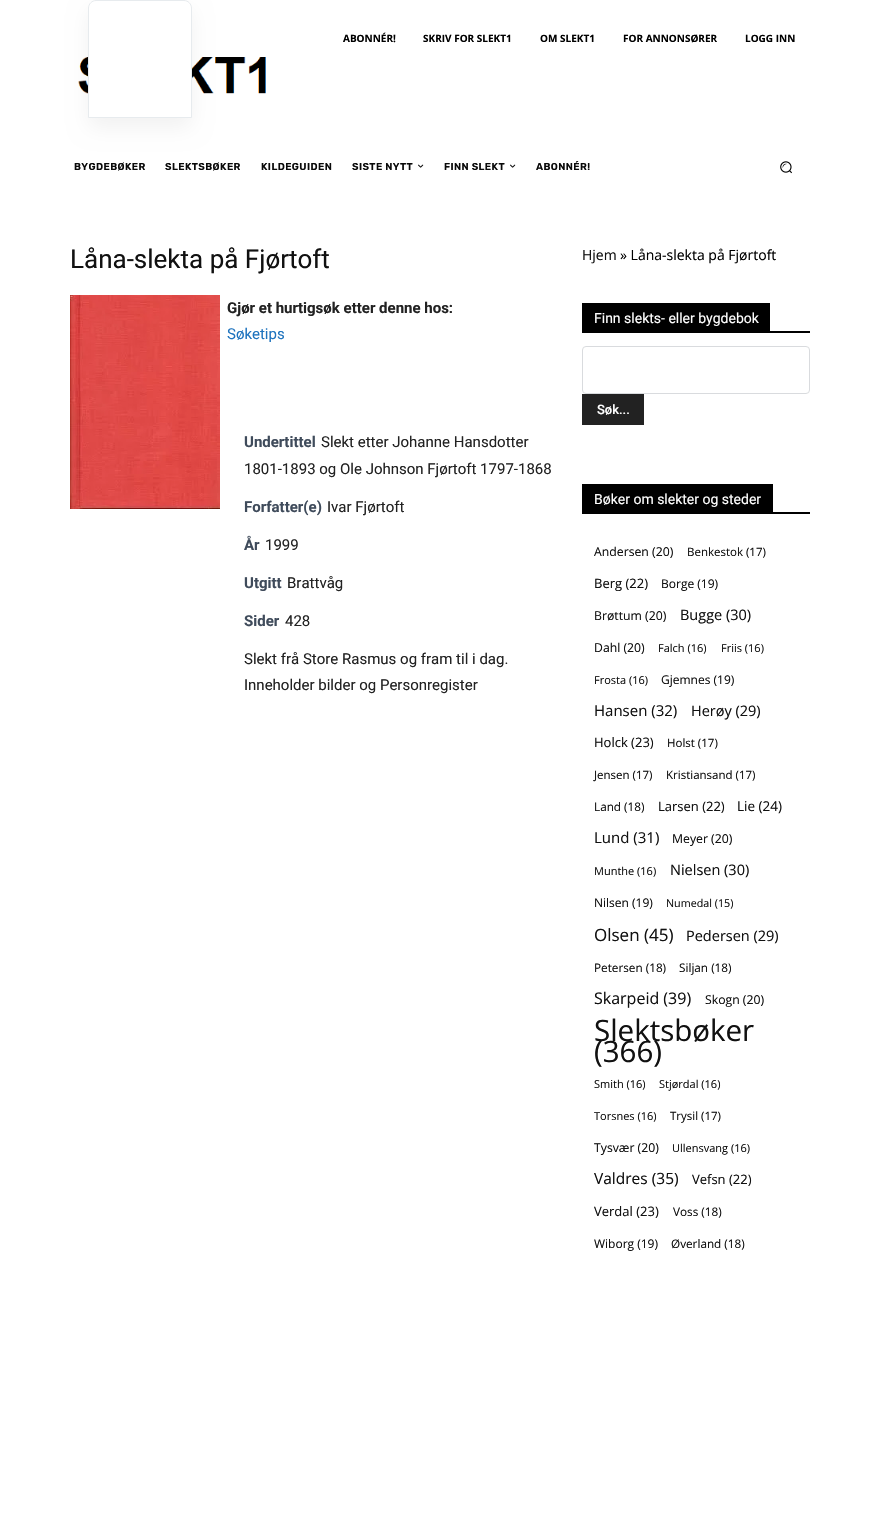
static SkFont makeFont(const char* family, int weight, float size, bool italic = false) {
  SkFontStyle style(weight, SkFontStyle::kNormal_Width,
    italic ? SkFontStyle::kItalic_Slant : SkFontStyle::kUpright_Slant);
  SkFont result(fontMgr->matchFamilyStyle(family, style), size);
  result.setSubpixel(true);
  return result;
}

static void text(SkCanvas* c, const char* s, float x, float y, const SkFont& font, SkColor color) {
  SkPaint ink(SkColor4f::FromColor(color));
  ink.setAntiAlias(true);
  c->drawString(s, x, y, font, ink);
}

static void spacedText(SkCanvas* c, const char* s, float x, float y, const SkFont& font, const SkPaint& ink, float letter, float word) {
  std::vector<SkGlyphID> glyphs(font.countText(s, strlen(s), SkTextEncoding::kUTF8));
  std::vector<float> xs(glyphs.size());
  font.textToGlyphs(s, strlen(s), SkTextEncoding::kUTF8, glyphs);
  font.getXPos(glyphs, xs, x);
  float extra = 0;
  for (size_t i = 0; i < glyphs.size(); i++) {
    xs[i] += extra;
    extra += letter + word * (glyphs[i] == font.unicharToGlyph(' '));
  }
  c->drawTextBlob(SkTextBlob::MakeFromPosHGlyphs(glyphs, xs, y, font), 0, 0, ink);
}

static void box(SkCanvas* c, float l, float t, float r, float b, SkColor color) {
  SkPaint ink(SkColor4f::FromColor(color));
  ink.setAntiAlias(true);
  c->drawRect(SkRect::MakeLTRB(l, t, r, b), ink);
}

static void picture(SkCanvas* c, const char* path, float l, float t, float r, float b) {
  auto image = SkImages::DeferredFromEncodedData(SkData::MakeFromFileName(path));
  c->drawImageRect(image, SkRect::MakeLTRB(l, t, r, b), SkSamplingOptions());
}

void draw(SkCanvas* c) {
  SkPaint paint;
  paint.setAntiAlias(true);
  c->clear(0xffffffff);
  picture(c, "img_01.png", 78, 56, 266, 94);
  paint.setColor(0x0d000000);
  paint.setMaskFilter(SkMaskFilter::MakeBlur(kNormal_SkBlurStyle, 10));
  c->drawRoundRect(SkRect::MakeLTRB(88, 10, 192, 128), 8, 8, paint);
  paint.setMaskFilter(nullptr);
  paint.setColor(0xffffffff);
  c->drawPath(SkPathBuilder().moveTo(96, 0.5f).lineTo(184, 0.5f).cubicTo(188, 0.5f, 191.5f, 4, 191.5f, 8).lineTo(191.5f, 117.5f).lineTo(88.5f, 117.5f).lineTo(88.5f, 8).cubicTo(88.5f, 4, 92, 0.5f, 96, 0.5f).close().detach(), paint);
  paint.setStyle(SkPaint::kStroke_Style);
  paint.setStrokeWidth(1);
  paint.setColor(0xffe7ebee);
  c->drawPath(SkPathBuilder().moveTo(96, 0.5f).lineTo(184, 0.5f).cubicTo(188, 0.5f, 191.5f, 4, 191.5f, 8).lineTo(191.5f, 117.5f).lineTo(88.5f, 117.5f).lineTo(88.5f, 8).cubicTo(88.5f, 4, 92, 0.5f, 96, 0.5f).close().detach(), paint);
  SkFont face1 = makeFont("Open Sans", 700, 10);
  text(c, "ABONNÉR!", 343, 42, face1, 0xff000000);
  text(c, "SKRIV FOR SLEKT1", 423, 42, face1, 0xff000000);
  text(c, "OM SLEKT1", 540, 42, face1, 0xff000000);
  text(c, "FOR ANNONSØRER", 623, 42, face1, 0xff000000);
  text(c, "LOGG INN", 745, 42, face1, 0xff000000);
  SkFont face2 = makeFont("Rubik", 600, 10);
  paint.setStyle(SkPaint::kFill_Style);
  paint.setColor(0xff0a0a0a);
  spacedText(c, "BYGDEBØKER", 74, 170, face2, paint, 0.4f, 0);
  spacedText(c, "SLEKTSBØKER", 165, 170, face2, paint, 0.4f, 0);
  spacedText(c, "KILDEGUIDEN", 261, 170, face2, paint, 0.4f, 0);
  spacedText(c, "SISTE NYTT", 352, 170, face2, paint, 0.4f, 0);
  picture(c, "img_02.png", 418, 164, 424, 168);
  spacedText(c, "FINN SLEKT", 444, 170, face2, paint, 0.4f, 0);
  picture(c, "img_02.png", 510, 164, 516, 168);
  spacedText(c, "ABONNÉR!", 536, 170, face2, paint, 0.4f, 0);
  picture(c, "img_03.png", 780, 161, 792, 174);
  SkFont face3 = makeFont("Roboto", 400, 26);
  text(c, "Låna-slekta på Fjørtoft", 70, 268, face3, 0xff111111);
  picture(c, "img_04.png", 70, 295, 220, 509);
  SkFont face4 = makeFont("Roboto", 700, 15);
  text(c, "Gjør et hurtigsøk etter denne hos:", 227, 313, face4, 0xff222222);
  SkFont face5 = makeFont("Roboto", 400, 15);
  text(c, "Søketips", 227, 339, face5, 0xff1e73be);
  text(c, "Undertittel", 244, 447, face4, 0xff3f4b5b);
  text(c, "Slekt etter Johanne Hansdotter", 321, 447, face5, 0xff222222);
  text(c, "1801-1893 og Ole Johnson Fjørtoft 1797-1868", 244, 474, face5, 0xff222222);
  text(c, "Forfatter(e)", 244, 512, face4, 0xff3f4b5b);
  text(c, "Ivar Fjørtoft", 327, 512, face5, 0xff222222);
  text(c, "År", 244, 550, face4, 0xff3f4b5b);
  text(c, "1999", 265, 550, face5, 0xff222222);
  text(c, "Utgitt", 244, 588, face4, 0xff3f4b5b);
  text(c, "Brattvåg", 287, 588, face5, 0xff222222);
  text(c, "Sider", 244, 626, face4, 0xff3f4b5b);
  text(c, "428", 285, 626, face5, 0xff222222);
  text(c, "Slekt frå Store Rasmus og fram til i dag.", 244, 664, face5, 0xff222222);
  text(c, "Inneholder bilder og Personregister", 244, 690, face5, 0xff222222);
  SkFont face6 = makeFont("Open Sans", 400, 14);
  text(c, "Hjem", 582, 260, face6, 0xff111111);
  text(c, "» Låna-slekta på Fjørtoft", 620, 260, face6, 0xff000000);
  box(c, 582, 331, 810, 333, 0xff000000);
  box(c, 582, 303, 770, 331, 0xff000000);
  SkFont face7 = makeFont("Roboto", 400, 14);
  text(c, "Finn slekts- eller bygdebok", 594, 323, face7, 0xffffffff);
  paint.setStyle(SkPaint::kStroke_Style);
  paint.setColor(0xffd9dbde);
  c->drawRoundRect(SkRect::MakeLTRB(582.5f, 346.5f, 809.5f, 393.5f), 3.5f, 3.5f, paint);
  box(c, 582, 394, 644, 425, 0xff222222);
  SkFont face8 = makeFont("Roboto", 500, 13);
  text(c, "Søk...", 597, 414, face8, 0xffffffff);
  box(c, 582, 512, 810, 514, 0xff000000);
  box(c, 582, 484, 773, 512, 0xff000000);
  text(c, "Bøker om slekter og steder", 594, 504, face7, 0xffffffff);
  SkFont face9 = makeFont("Open Sans", 400, 12.25f);
  text(c, "Andersen (20)", 594, 556, face9, 0xff111111);
  SkFont face10 = makeFont("Open Sans", 400, 11.5f);
  text(c, "Benkestok (17)", 687, 556, face10, 0xff111111);
  SkFont face11 = makeFont("Open Sans", 400, 13);
  text(c, "Berg (22)", 594, 588, face11, 0xff111111);
  SkFont face12 = makeFont("Open Sans", 400, 12);
  text(c, "Borge (19)", 661, 588, face12, 0xff111111);
  text(c, "Brøttum (20)", 594, 620, face9, 0xff111111);
  SkFont face13 = makeFont("Open Sans", 400, 14.5f);
  text(c, "Bugge (30)", 680, 620, face13, 0xff111111);
  text(c, "Dahl (20)", 594, 652, face9, 0xff111111);
  SkFont face14 = makeFont("Open Sans", 400, 11);
  text(c, "Falch (16)", 658, 652, face14, 0xff111111);
  text(c, "Friis (16)", 721, 652, face14, 0xff111111);
  text(c, "Frosta (16)", 594, 684, face14, 0xff111111);
  text(c, "Gjemnes (19)", 661, 684, face12, 0xff111111);
  SkFont face15 = makeFont("Open Sans", 400, 15);
  text(c, "Hansen (32)", 594, 716, face15, 0xff111111);
  text(c, "Herøy (29)", 691, 716, face13, 0xff111111);
  text(c, "Holck (23)", 594, 747, face11, 0xff111111);
  text(c, "Holst (17)", 667, 747, face10, 0xff111111);
  text(c, "Jensen (17)", 594, 779, face10, 0xff111111);
  text(c, "Kristiansand (17)", 666, 779, face10, 0xff111111);
  SkFont face16 = makeFont("Open Sans", 400, 11.75f);
  text(c, "Land (18)", 594, 811, face16, 0xff111111);
  text(c, "Larsen (22)", 658, 811, face11, 0xff111111);
  SkFont face17 = makeFont("Open Sans", 400, 13.5f);
  text(c, "Lie (24)", 737, 811, face17, 0xff111111);
  text(c, "Lund (31)", 594, 843, face15, 0xff111111);
  text(c, "Meyer (20)", 672, 843, face9, 0xff111111);
  text(c, "Munthe (16)", 594, 875, face14, 0xff111111);
  text(c, "Nielsen (30)", 670, 875, face13, 0xff111111);
  text(c, "Nilsen (19)", 594, 907, face12, 0xff111111);
  SkFont face18 = makeFont("Open Sans", 400, 10.75f);
  text(c, "Numedal (15)", 666, 907, face18, 0xff111111);
  SkFont face19 = makeFont("Open Sans", 400, 17);
  text(c, "Olsen (45)", 594, 941, face19, 0xff111111);
  text(c, "Pedersen (29)", 686, 941, face13, 0xff111111);
  text(c, "Petersen (18)", 594, 972, face16, 0xff111111);
  text(c, "Siljan (18)", 679, 972, face16, 0xff111111);
  SkFont face20 = makeFont("Open Sans", 400, 16);
  text(c, "Skarpeid (39)", 594, 1004, face20, 0xff111111);
  text(c, "Skogn (20)", 705, 1004, face9, 0xff111111);
  SkFont face21 = makeFont("Open Sans", 400, 29.5f);
  text(c, "Slektsbøker", 594, 1041, face21, 0xff111111);
  text(c, "(366)", 594, 1062, face21, 0xff111111);
  text(c, "Smith (16)", 594, 1088, face14, 0xff111111);
  text(c, "Stjørdal (16)", 659, 1088, face14, 0xff111111);
  text(c, "Torsnes (16)", 594, 1120, face14, 0xff111111);
  text(c, "Trysil (17)", 670, 1120, face10, 0xff111111);
  text(c, "Tysvær (20)", 594, 1152, face9, 0xff111111);
  text(c, "Ullensvang (16)", 672, 1152, face14, 0xff111111);
  SkFont face22 = makeFont("Open Sans", 400, 15.5f);
  text(c, "Valdres (35)", 594, 1184, face22, 0xff111111);
  text(c, "Vefsn (22)", 692, 1184, face11, 0xff111111);
  text(c, "Verdal (23)", 594, 1216, face11, 0xff111111);
  text(c, "Voss (18)", 673, 1216, face16, 0xff111111);
  text(c, "Wiborg (19)", 594, 1248, face12, 0xff111111);
  text(c, "Øverland (18)", 671, 1248, face16, 0xff111111);
}
